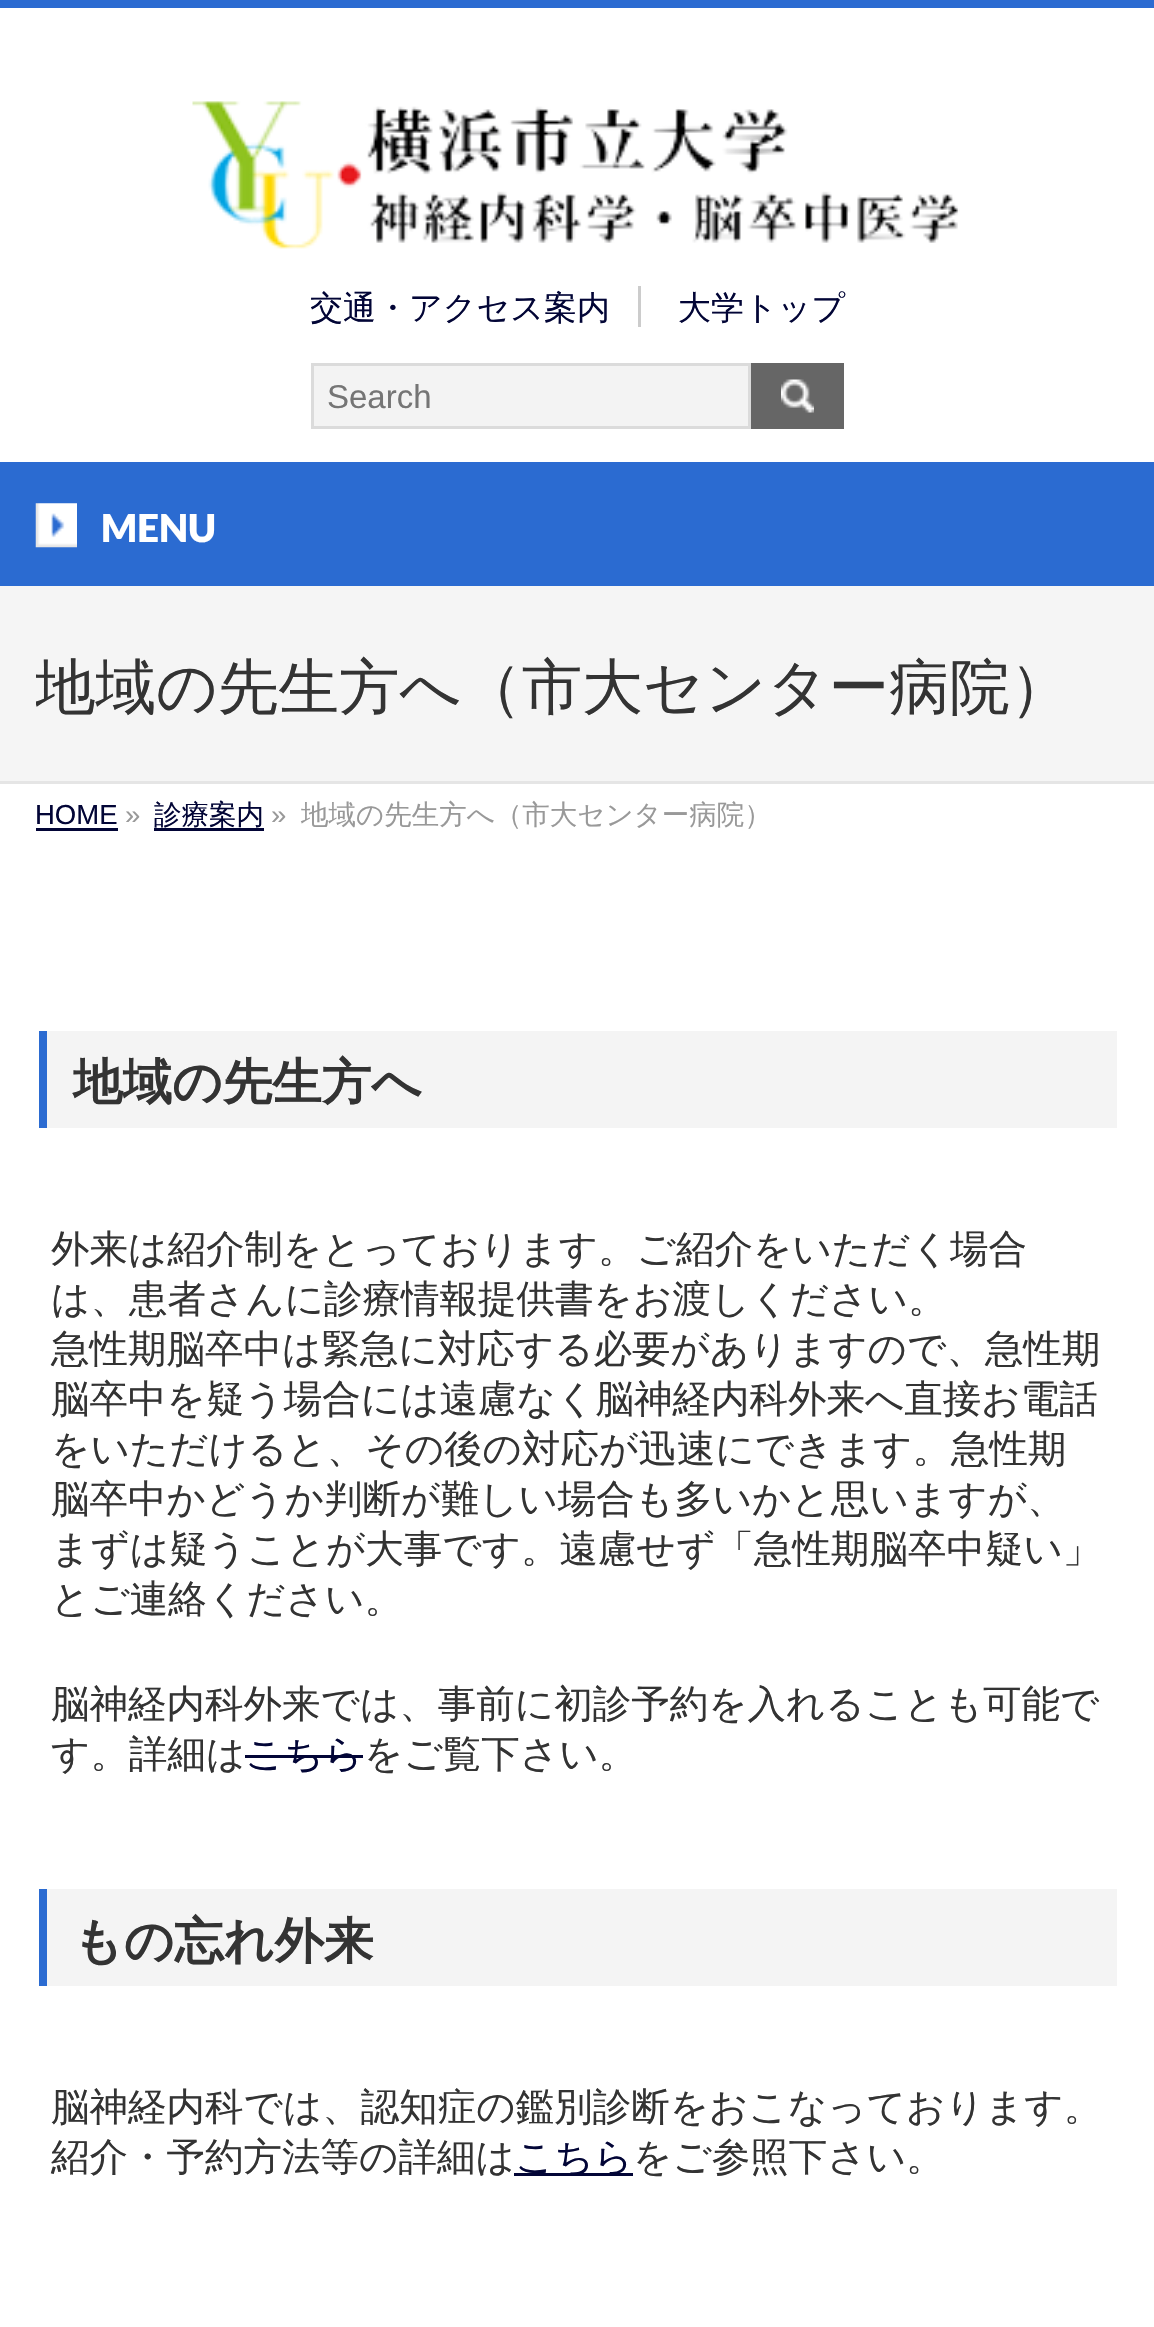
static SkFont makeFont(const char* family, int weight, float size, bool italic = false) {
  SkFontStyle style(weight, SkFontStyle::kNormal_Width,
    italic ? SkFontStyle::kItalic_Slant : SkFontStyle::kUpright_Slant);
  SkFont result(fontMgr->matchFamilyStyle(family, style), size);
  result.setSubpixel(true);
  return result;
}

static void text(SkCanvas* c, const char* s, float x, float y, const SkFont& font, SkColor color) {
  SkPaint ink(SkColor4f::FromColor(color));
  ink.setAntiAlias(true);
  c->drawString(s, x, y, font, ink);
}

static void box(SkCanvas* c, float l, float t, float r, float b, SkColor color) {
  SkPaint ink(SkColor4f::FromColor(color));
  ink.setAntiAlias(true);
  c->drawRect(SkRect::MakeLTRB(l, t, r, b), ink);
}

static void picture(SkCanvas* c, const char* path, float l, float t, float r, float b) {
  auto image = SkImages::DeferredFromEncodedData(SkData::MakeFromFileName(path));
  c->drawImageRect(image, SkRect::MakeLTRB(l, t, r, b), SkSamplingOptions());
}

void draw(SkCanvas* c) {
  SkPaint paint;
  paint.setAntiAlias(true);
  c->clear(0xffffffff);
  box(c, 0, 0, 1154, 8, 0xff2b6bd1);
  picture(c, "img_01.png", 192, 101, 960, 249);
  box(c, 638, 286, 641, 327, 0xffcccccc);
  SkFont face1 = makeFont("WenQuanYi Zen Hei", 500, 33);
  text(c, "交通・アクセス案内", 310, 319, face1, 0xff020536);
  text(c, "大学トップ", 678, 319, face1, 0xff020536);
  paint.setColor(0xfff3f3f3);
  c->drawRect(SkRect::MakeLTRB(312.5f, 364.5f, 749.5f, 427.5f), paint);
  paint.setStyle(SkPaint::kStroke_Style);
  paint.setStrokeWidth(3);
  paint.setColor(0xffdbdbdb);
  c->drawRect(SkRect::MakeLTRB(312.5f, 364.5f, 749.5f, 427.5f), paint);
  SkFont face2 = makeFont("Liberation Sans", 400, 33);
  text(c, "Search", 327, 408, face2, 0xff757575);
  box(c, 751, 363, 844, 429, 0xff666666);
  picture(c, "img_02.png", 781, 379, 814, 413);
  box(c, 0, 462, 1154, 586, 0xff2b6bd1);
  picture(c, "img_03.png", 35, 503, 77, 548);
  SkFont face3 = makeFont("Lato", 900, 38.5f);
  text(c, "MENU", 101, 542, face3, 0xffffffff);
  box(c, 0, 586, 1154, 781, 0xfff5f5f5);
  box(c, 0, 781, 1154, 784, 0xffe5e5e5);
  c->save();
  c->clipRect(SkRect::MakeLTRB(36, 586, 1119, 781));
  SkFont face4 = makeFont("WenQuanYi Zen Hei", 500, 60.5f);
  text(c, "地域の先生方へ（市大センター病院）", 35, 708, face4, 0xff333333);
  c->restore();
  SkFont face5 = makeFont("Liberation Sans", 400, 27.5f);
  text(c, "HOME", 35, 824, face5, 0xff020536);
  box(c, 36, 828, 118, 831, 0xff020536);
  text(c, "»", 125, 824, face5, 0xff999999);
  SkFont face6 = makeFont("WenQuanYi Zen Hei", 500, 27.5f);
  text(c, "診療案内", 154, 824, face6, 0xff020536);
  box(c, 154, 828, 264, 831, 0xff020536);
  text(c, "»", 271, 824, face5, 0xff999999);
  text(c, "地域の先生方へ（市大センター病院）", 301, 824, face6, 0xff999999);
  box(c, 47, 1031, 1117, 1128, 0xfff4f4f4);
  box(c, 39, 1031, 47, 1128, 0xff2b6bd1);
  SkFont face7 = makeFont("WenQuanYi Zen Hei", 700, 49.5f);
  text(c, "地域の先生方へ", 73, 1099, face7, 0xff333333);
  SkFont face8 = makeFont("WenQuanYi Zen Hei", 500, 38.5f);
  text(c, "外来は紹介制をとっております。ご紹介をいただく場合", 51, 1262, face8, 0xff333333);
  text(c, "は、患者さんに診療情報提供書をお渡しください。", 51, 1312, face8, 0xff333333);
  text(c, "急性期脳卒中は緊急に対応する必要がありますので、急性期", 51, 1362, face8, 0xff333333);
  text(c, "脳卒中を疑う場合には遠慮なく脳神経内科外来へ直接お電話", 51, 1412, face8, 0xff333333);
  text(c, "をいただけると、その後の対応が迅速にできます。急性期", 51, 1462, face8, 0xff333333);
  text(c, "脳卒中かどうか判断が難しい場合も多いかと思いますが、", 51, 1512, face8, 0xff333333);
  text(c, "まずは疑うことが大事です。遠慮せず「急性期脳卒中疑い」", 51, 1562, face8, 0xff333333);
  text(c, "とご連絡ください。", 51, 1612, face8, 0xff333333);
  text(c, "脳神経内科外来では、事前に初診予約を入れることも可能で", 51, 1717, face8, 0xff333333);
  text(c, "す。詳細は", 51, 1767, face8, 0xff333333);
  text(c, "こちら", 245, 1767, face8, 0xff020536);
  box(c, 245, 1755, 363, 1758, 0xff020536);
  text(c, "をご覧下さい。", 364, 1767, face8, 0xff333333);
  box(c, 47, 1889, 1117, 1986, 0xfff4f4f4);
  box(c, 39, 1889, 47, 1986, 0xff2b6bd1);
  text(c, "もの忘れ外来", 73, 1958, face7, 0xff333333);
  text(c, "脳神経内科では、認知症の鑑別診断をおこなっております。", 51, 2120, face8, 0xff333333);
  text(c, "紹介・予約方法等の詳細は", 51, 2170, face8, 0xff333333);
  box(c, 514, 2173, 633, 2176, 0xff020536);
  text(c, "こちら", 515, 2170, face8, 0xff020536);
  text(c, "をご参照下さい。", 633, 2170, face8, 0xff333333);
}
